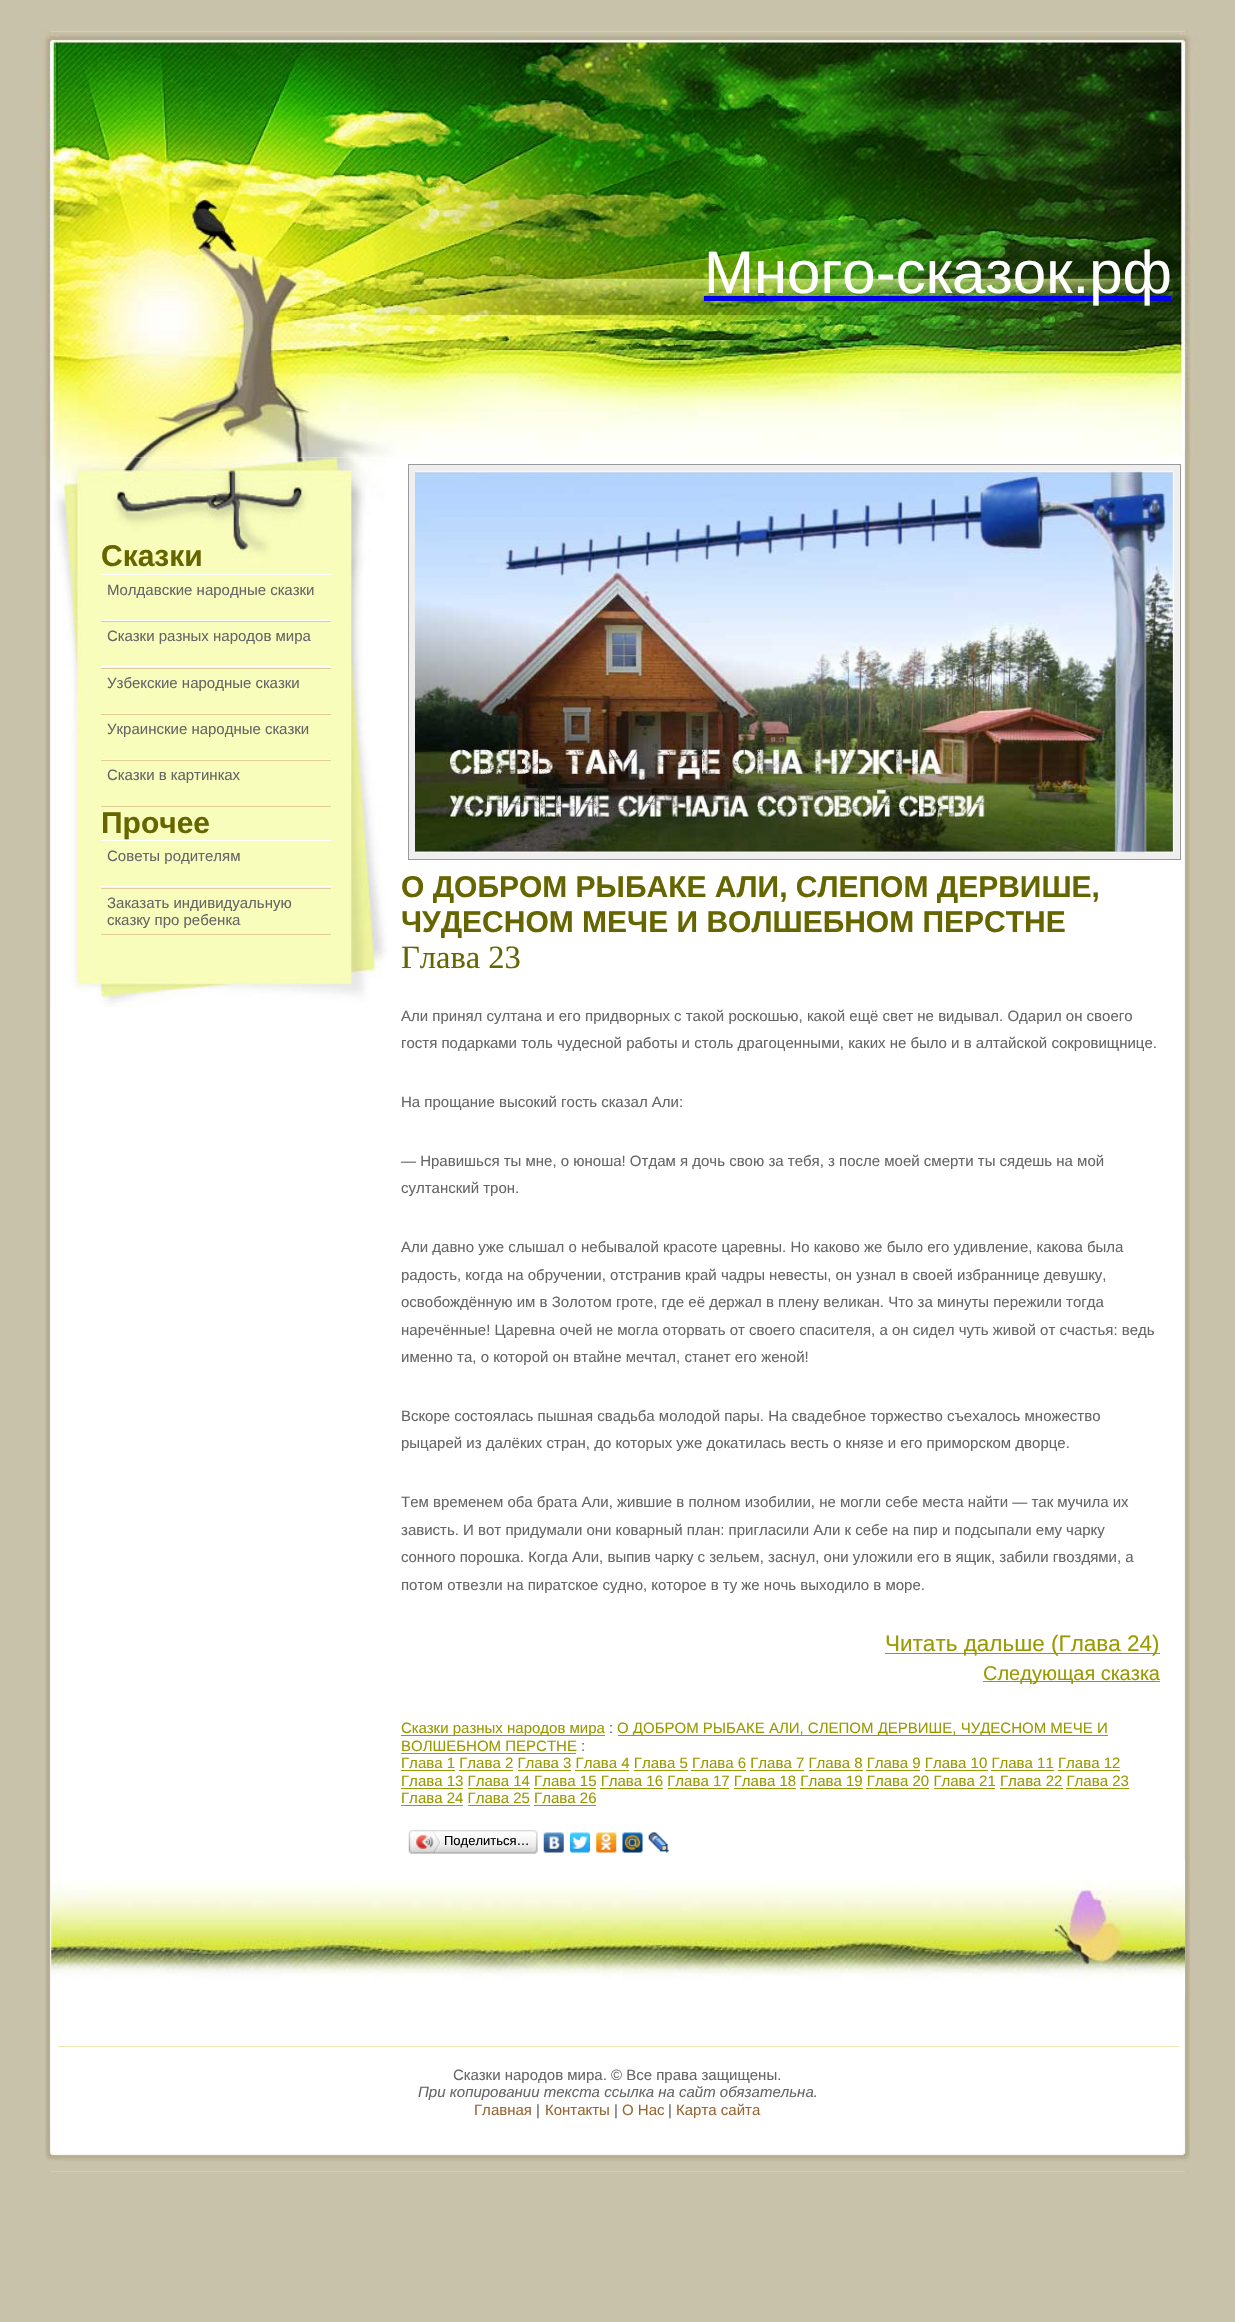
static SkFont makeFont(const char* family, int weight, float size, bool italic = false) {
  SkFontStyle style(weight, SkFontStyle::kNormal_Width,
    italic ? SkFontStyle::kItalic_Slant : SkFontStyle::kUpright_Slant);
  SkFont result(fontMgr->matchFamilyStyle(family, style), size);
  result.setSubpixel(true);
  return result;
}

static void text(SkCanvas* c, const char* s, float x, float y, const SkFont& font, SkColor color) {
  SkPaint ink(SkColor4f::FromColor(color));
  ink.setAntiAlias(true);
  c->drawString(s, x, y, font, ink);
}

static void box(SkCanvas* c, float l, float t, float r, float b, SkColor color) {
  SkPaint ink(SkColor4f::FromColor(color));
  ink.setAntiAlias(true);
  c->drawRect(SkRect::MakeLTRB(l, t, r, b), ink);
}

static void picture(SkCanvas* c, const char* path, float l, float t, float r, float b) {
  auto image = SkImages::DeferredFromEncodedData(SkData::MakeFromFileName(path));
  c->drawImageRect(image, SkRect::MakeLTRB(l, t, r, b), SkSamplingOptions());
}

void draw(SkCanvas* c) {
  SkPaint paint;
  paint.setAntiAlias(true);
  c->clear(0xffc8c2aa);
  picture(c, "img_01.png", 45, 31, 1190, 2172);
  picture(c, "img_02.png", 39, 31, 1198, 458);
  box(c, 704, 296, 1171, 301, 0xff0000ee);
  SkFont face1 = makeFont("Liberation Sans", 400, 60);
  text(c, "Много-сказок.рф", 704, 293, face1, 0xffffffff);
  picture(c, "img_03.png", 52, 457, 387, 1007);
  SkFont face2 = makeFont("Liberation Sans", 700, 30);
  text(c, "Сказки", 101, 566, face2, 0xff666600);
  box(c, 101, 574, 331, 575, 0xffffffff);
  box(c, 101, 621, 331, 622, 0xffdfcd95);
  SkFont face3 = makeFont("Liberation Sans", 400, 15);
  text(c, "Молдавские народные сказки", 107, 595, face3, 0xff666666);
  box(c, 101, 620, 331, 621, 0xffffffff);
  box(c, 101, 668, 331, 669, 0xffdfcd95);
  text(c, "Сказки разных народов мира", 107, 641, face3, 0xff666666);
  box(c, 101, 666, 331, 667, 0xffffffff);
  box(c, 101, 714, 331, 715, 0xffdfcd95);
  text(c, "Узбекские народные сказки", 107, 688, face3, 0xff666666);
  box(c, 101, 713, 331, 714, 0xffffffff);
  box(c, 101, 760, 331, 761, 0xffdfcd95);
  text(c, "Украинские народные сказки", 107, 734, face3, 0xff666666);
  box(c, 101, 759, 331, 760, 0xffffffff);
  box(c, 101, 806, 331, 807, 0xffdfcd95);
  text(c, "Сказки в картинках", 107, 780, face3, 0xff666666);
  text(c, "Прочее", 101, 833, face2, 0xff666600);
  box(c, 101, 840, 331, 841, 0xffffffff);
  box(c, 101, 888, 331, 889, 0xffdfcd95);
  text(c, "Советы родителям", 107, 861, face3, 0xff666666);
  box(c, 101, 886, 331, 887, 0xffffffff);
  box(c, 101, 934, 331, 935, 0xffdfcd95);
  text(c, "Заказать индивидуальную", 107, 908, face3, 0xff666666);
  text(c, "сказку про ребенка", 107, 925, face3, 0xff666666);
  paint.setColor(0xffefefef);
  c->drawRect(SkRect::MakeLTRB(408.5f, 464.5f, 1180.5f, 859.5f), paint);
  paint.setStyle(SkPaint::kStroke_Style);
  paint.setStrokeWidth(1);
  paint.setColor(0xff999999);
  c->drawRect(SkRect::MakeLTRB(408.5f, 464.5f, 1180.5f, 859.5f), paint);
  picture(c, "img_04.png", 415, 471, 1174, 853);
  text(c, "О ДОБРОМ РЫБАКЕ АЛИ, СЛЕПОМ ДЕРВИШЕ,", 401, 897, face2, 0xff666600);
  text(c, "ЧУДЕСНОМ МЕЧЕ И ВОЛШЕБНОМ ПЕРСТНЕ", 401, 932, face2, 0xff666600);
  SkFont face4 = makeFont("Liberation Serif", 400, 32.5f);
  text(c, "Глава 23", 401, 968, face4, 0xff666600);
  text(c, "Али принял султана и его придворных с такой роскошью, какой ещё свет не видывал. Одарил он своего", 401, 1021, face3, 0xff666666);
  text(c, "гостя подарками толь чудесной работы и столь драгоценными, каких не было и в алтайской сокровищнице.", 401, 1048, face3, 0xff666666);
  text(c, "На прощание высокий гость сказал Али:", 401, 1107, face3, 0xff666666);
  text(c, "— Нравишься ты мне, о юноша! Отдам я дочь свою за тебя, з после моей смерти ты сядешь на мой", 401, 1166, face3, 0xff666666);
  text(c, "султанский трон.", 401, 1193, face3, 0xff666666);
  text(c, "Али давно уже слышал о небывалой красоте царевны. Но каково же было его удивление, какова была", 401, 1252, face3, 0xff666666);
  text(c, "радость, когда на обручении, отстранив край чадры невесты, он узнал в своей избраннице девушку,", 401, 1280, face3, 0xff666666);
  text(c, "освобождённую им в Золотом гроте, где её держал в плену великан. Что за минуты пережили тогда", 401, 1307, face3, 0xff666666);
  text(c, "наречённые! Царевна очей не могла оторвать от своего спасителя, а он сидел чуть живой от счастья: ведь", 401, 1335, face3, 0xff666666);
  text(c, "именно та, о которой он втайне мечтал, станет его женой!", 401, 1362, face3, 0xff666666);
  text(c, "Вскоре состоялась пышная свадьба молодой пары. На свадебное торжество съехалось множество", 401, 1421, face3, 0xff666666);
  text(c, "рыцарей из далёких стран, до которых уже докатилась весть о князе и его приморском дворце.", 401, 1448, face3, 0xff666666);
  text(c, "Тем временем оба брата Али, жившие в полном изобилии, не могли себе места найти — так мучила их", 401, 1507, face3, 0xff666666);
  text(c, "зависть. И вот придумали они коварный план: пригласили Али к себе на пир и подсыпали ему чарку", 401, 1535, face3, 0xff666666);
  text(c, "сонного порошка. Когда Али, выпив чарку с зельем, заснул, они уложили его в ящик, забили гвоздями, а", 401, 1562, face3, 0xff666666);
  text(c, "потом отвезли на пиратское судно, которое в ту же ночь выходило в море.", 401, 1590, face3, 0xff666666);
  box(c, 885, 1653, 1160, 1654, 0xff999900);
  SkFont face5 = makeFont("Liberation Sans", 400, 22.5f);
  text(c, "Читать дальше (Глава 24)", 885, 1651, face5, 0xff999900);
  box(c, 983, 1681, 1160, 1682, 0xff999900);
  SkFont face6 = makeFont("Liberation Sans", 400, 20);
  text(c, "Следующая сказка", 983, 1680, face6, 0xff999900);
  box(c, 401, 1735, 605, 1736, 0xff999900);
  text(c, "Сказки разных народов мира", 401, 1733, face3, 0xff999900);
  text(c, ":", 609, 1733, face3, 0xff666666);
  box(c, 618, 1735, 1108, 1736, 0xff999900);
  text(c, "О ДОБРОМ РЫБАКЕ АЛИ, СЛЕПОМ ДЕРВИШЕ, ЧУДЕСНОМ МЕЧЕ И", 617, 1733, face3, 0xff999900);
  text(c, "ВОЛШЕБНОМ ПЕРСТНЕ", 401, 1751, face3, 0xff999900);
  box(c, 401, 1753, 576, 1754, 0xff999900);
  text(c, ":", 581, 1751, face3, 0xff666666);
  text(c, "Глава 1 Глава 2 Глава 3 Глава 4 Глава 5 Глава 6 Глава 7 Глава 8 Глава 9 Глава 10 Глава 11 Глава 12", 401, 1768, face3, 0xff999900);
  box(c, 401, 1770, 455, 1771, 0xff999900);
  box(c, 459, 1770, 513, 1771, 0xff999900);
  box(c, 518, 1770, 571, 1771, 0xff999900);
  box(c, 575, 1770, 629, 1771, 0xff999900);
  box(c, 634, 1770, 688, 1771, 0xff999900);
  box(c, 691, 1770, 746, 1771, 0xff999900);
  box(c, 750, 1770, 804, 1771, 0xff999900);
  box(c, 809, 1770, 863, 1771, 0xff999900);
  box(c, 866, 1770, 920, 1771, 0xff999900);
  box(c, 925, 1770, 988, 1771, 0xff999900);
  box(c, 991, 1770, 1054, 1771, 0xff999900);
  box(c, 1058, 1770, 1120, 1771, 0xff999900);
  text(c, "Глава 13 Глава 14 Глава 15 Глава 16 Глава 17 Глава 18 Глава 19 Глава 20 Глава 21 Глава 22 Глава 23", 401, 1786, face3, 0xff999900);
  box(c, 401, 1788, 463, 1789, 0xff999900);
  box(c, 468, 1788, 530, 1789, 0xff999900);
  box(c, 534, 1788, 596, 1789, 0xff999900);
  box(c, 600, 1788, 663, 1789, 0xff999900);
  box(c, 668, 1788, 729, 1789, 0xff999900);
  box(c, 734, 1788, 796, 1789, 0xff999900);
  box(c, 800, 1788, 863, 1789, 0xff999900);
  box(c, 866, 1788, 929, 1789, 0xff999900);
  box(c, 934, 1788, 995, 1789, 0xff999900);
  box(c, 1000, 1788, 1063, 1789, 0xff999900);
  box(c, 1066, 1788, 1129, 1789, 0xff999900);
  text(c, "Глава 24 Глава 25 Глава 26", 401, 1803, face3, 0xff999900);
  box(c, 401, 1805, 463, 1806, 0xff999900);
  box(c, 468, 1805, 530, 1806, 0xff999900);
  box(c, 534, 1805, 596, 1806, 0xff999900);
  picture(c, "img_05.png", 412, 1830, 534, 1854);
  picture(c, "img_06.png", 408, 1830, 413, 1854);
  picture(c, "img_07.png", 416, 1831, 441, 1853);
  SkFont face7 = makeFont("Liberation Sans", 400, 13);
  text(c, "Поделиться…", 444, 1845, face7, 0xff000000);
  picture(c, "img_08.png", 533, 1830, 538, 1854);
  picture(c, "img_09.png", 543, 1832, 564, 1853);
  picture(c, "img_10.png", 570, 1832, 590, 1853);
  picture(c, "img_11.png", 596, 1832, 617, 1853);
  picture(c, "img_12.png", 622, 1832, 643, 1853);
  picture(c, "img_13.png", 648, 1832, 669, 1853);
  picture(c, "img_14.png", 51, 1860, 1185, 1999);
  picture(c, "img_15.png", 45, 2134, 1190, 2172);
  box(c, 58, 2046, 1179, 2047, 0xffebe6b4);
  text(c, "Сказки народов мира. © Все права защищены.", 453, 2080, face3, 0xff666666);
  SkFont face8 = makeFont("Liberation Sans", 400, 15, true);
  text(c, "При копировании текста ссылка на сайт обязательна.", 418, 2097, face8, 0xff666666);
  text(c, "Главная", 474, 2115, face3, 0xff996633);
  text(c, "|", 536, 2115, face3, 0xff666666);
  text(c, "Контакты", 545, 2115, face3, 0xff996633);
  text(c, "|", 614, 2115, face3, 0xff666666);
  text(c, "О Нас", 622, 2115, face3, 0xff996633);
  text(c, "|", 668, 2115, face3, 0xff666666);
  text(c, "Карта сайта", 676, 2115, face3, 0xff996633);
}
